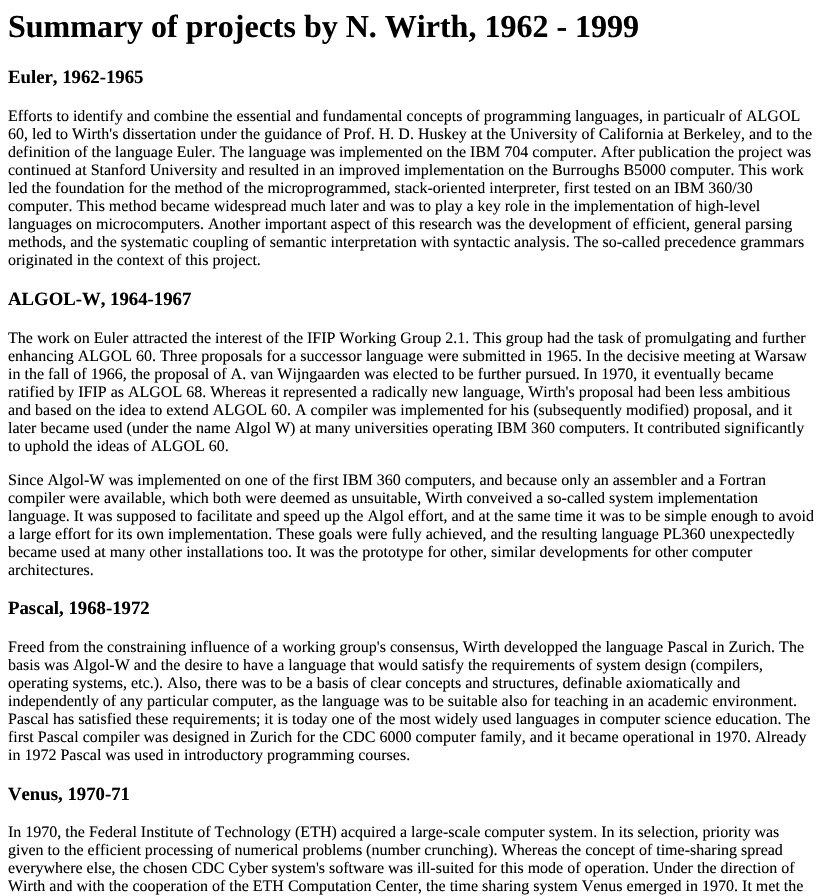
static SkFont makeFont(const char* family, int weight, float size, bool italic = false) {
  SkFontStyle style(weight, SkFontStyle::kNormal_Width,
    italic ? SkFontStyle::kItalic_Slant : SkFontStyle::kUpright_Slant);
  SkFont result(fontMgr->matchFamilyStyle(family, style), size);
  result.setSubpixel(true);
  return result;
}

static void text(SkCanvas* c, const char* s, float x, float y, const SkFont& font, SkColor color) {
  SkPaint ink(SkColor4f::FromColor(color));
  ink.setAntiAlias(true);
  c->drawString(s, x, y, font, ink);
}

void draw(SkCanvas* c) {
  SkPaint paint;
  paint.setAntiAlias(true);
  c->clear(0xffffffff);
  SkFont face1 = makeFont("Liberation Serif", 700, 32);
  text(c, "Summary of projects by N. Wirth, 1962 - 1999", 8, 37, face1, 0xff000000);
  SkFont face2 = makeFont("Liberation Serif", 700, 18.75f);
  text(c, "Euler, 1962-1965", 8, 83, face2, 0xff000000);
  SkFont face3 = makeFont("Liberation Serif", 400, 16);
  text(c, "Efforts to identify and combine the essential and fundamental concepts of programming languages, in particualr of ALGOL", 8, 121, face3, 0xff000000);
  text(c, "60, led to Wirth's dissertation under the guidance of Prof. H. D. Huskey at the University of California at Berkeley, and to the", 8, 139, face3, 0xff000000);
  text(c, "definition of the language Euler. The language was implemented on the IBM 704 computer. After publication the project was", 8, 157, face3, 0xff000000);
  text(c, "continued at Stanford University and resulted in an improved implementation on the Burroughs B5000 computer. This work", 8, 175, face3, 0xff000000);
  text(c, "led the foundation for the method of the microprogrammed, stack-oriented interpreter, first tested on an IBM 360/30", 8, 193, face3, 0xff000000);
  text(c, "computer. This method became widespread much later and was to play a key role in the implementation of high-level", 8, 211, face3, 0xff000000);
  text(c, "languages on microcomputers. Another important aspect of this research was the development of efficient, general parsing", 8, 229, face3, 0xff000000);
  text(c, "methods, and the systematic coupling of semantic interpretation with syntactic analysis. The so-called precedence grammars", 8, 247, face3, 0xff000000);
  text(c, "originated in the context of this project.", 8, 265, face3, 0xff000000);
  text(c, "ALGOL-W, 1964-1967", 8, 305, face2, 0xff000000);
  text(c, "The work on Euler attracted the interest of the IFIP Working Group 2.1. This group had the task of promulgating and further", 8, 343, face3, 0xff000000);
  text(c, "enhancing ALGOL 60. Three proposals for a successor language were submitted in 1965. In the decisive meeting at Warsaw", 8, 361, face3, 0xff000000);
  text(c, "in the fall of 1966, the proposal of A. van Wijngaarden was elected to be further pursued. In 1970, it eventually became", 8, 379, face3, 0xff000000);
  text(c, "ratified by IFIP as ALGOL 68. Whereas it represented a radically new language, Wirth's proposal had been less ambitious", 8, 397, face3, 0xff000000);
  text(c, "and based on the idea to extend ALGOL 60. A compiler was implemented for his (subsequently modified) proposal, and it", 8, 415, face3, 0xff000000);
  text(c, "later became used (under the name Algol W) at many universities operating IBM 360 computers. It contributed significantly", 8, 433, face3, 0xff000000);
  text(c, "to uphold the ideas of ALGOL 60.", 8, 451, face3, 0xff000000);
  text(c, "Since Algol-W was implemented on one of the first IBM 360 computers, and because only an assembler and a Fortran", 8, 485, face3, 0xff000000);
  text(c, "compiler were available, which both were deemed as unsuitable, Wirth conveived a so-called system implementation", 8, 503, face3, 0xff000000);
  text(c, "language. It was supposed to facilitate and speed up the Algol effort, and at the same time it was to be simple enough to avoid", 8, 521, face3, 0xff000000);
  text(c, "a large effort for its own implementation. These goals were fully achieved, and the resulting language PL360 unexpectedly", 8, 539, face3, 0xff000000);
  text(c, "became used at many other installations too. It was the prototype for other, similar developments for other computer", 8, 557, face3, 0xff000000);
  text(c, "architectures.", 8, 575, face3, 0xff000000);
  text(c, "Pascal, 1968-1972", 8, 614, face2, 0xff000000);
  text(c, "Freed from the constraining influence of a working group's consensus, Wirth developped the language Pascal in Zurich. The", 8, 652, face3, 0xff000000);
  text(c, "basis was Algol-W and the desire to have a language that would satisfy the requirements of system design (compilers,", 8, 670, face3, 0xff000000);
  text(c, "operating systems, etc.). Also, there was to be a basis of clear concepts and structures, definable axiomatically and", 8, 688, face3, 0xff000000);
  text(c, "independently of any particular computer, as the language was to be suitable also for teaching in an academic environment.", 8, 706, face3, 0xff000000);
  text(c, "Pascal has satisfied these requirements; it is today one of the most widely used languages in computer science education. The", 8, 724, face3, 0xff000000);
  text(c, "first Pascal compiler was designed in Zurich for the CDC 6000 computer family, and it became operational in 1970. Already", 8, 742, face3, 0xff000000);
  text(c, "in 1972 Pascal was used in introductory programming courses.", 8, 760, face3, 0xff000000);
  text(c, "Venus, 1970-71", 8, 800, face2, 0xff000000);
  text(c, "In 1970, the Federal Institute of Technology (ETH) acquired a large-scale computer system. In its selection, priority was", 8, 837, face3, 0xff000000);
  text(c, "given to the efficient processing of numerical problems (number crunching). Whereas the concept of time-sharing spread", 8, 855, face3, 0xff000000);
  text(c, "everywhere else, the chosen CDC Cyber system's software was ill-suited for this mode of operation. Under the direction of", 8, 873, face3, 0xff000000);
  text(c, "Wirth and with the cooperation of the ETH Computation Center, the time sharing system Venus emerged in 1970. It met the", 8, 891, face3, 0xff000000);
}
